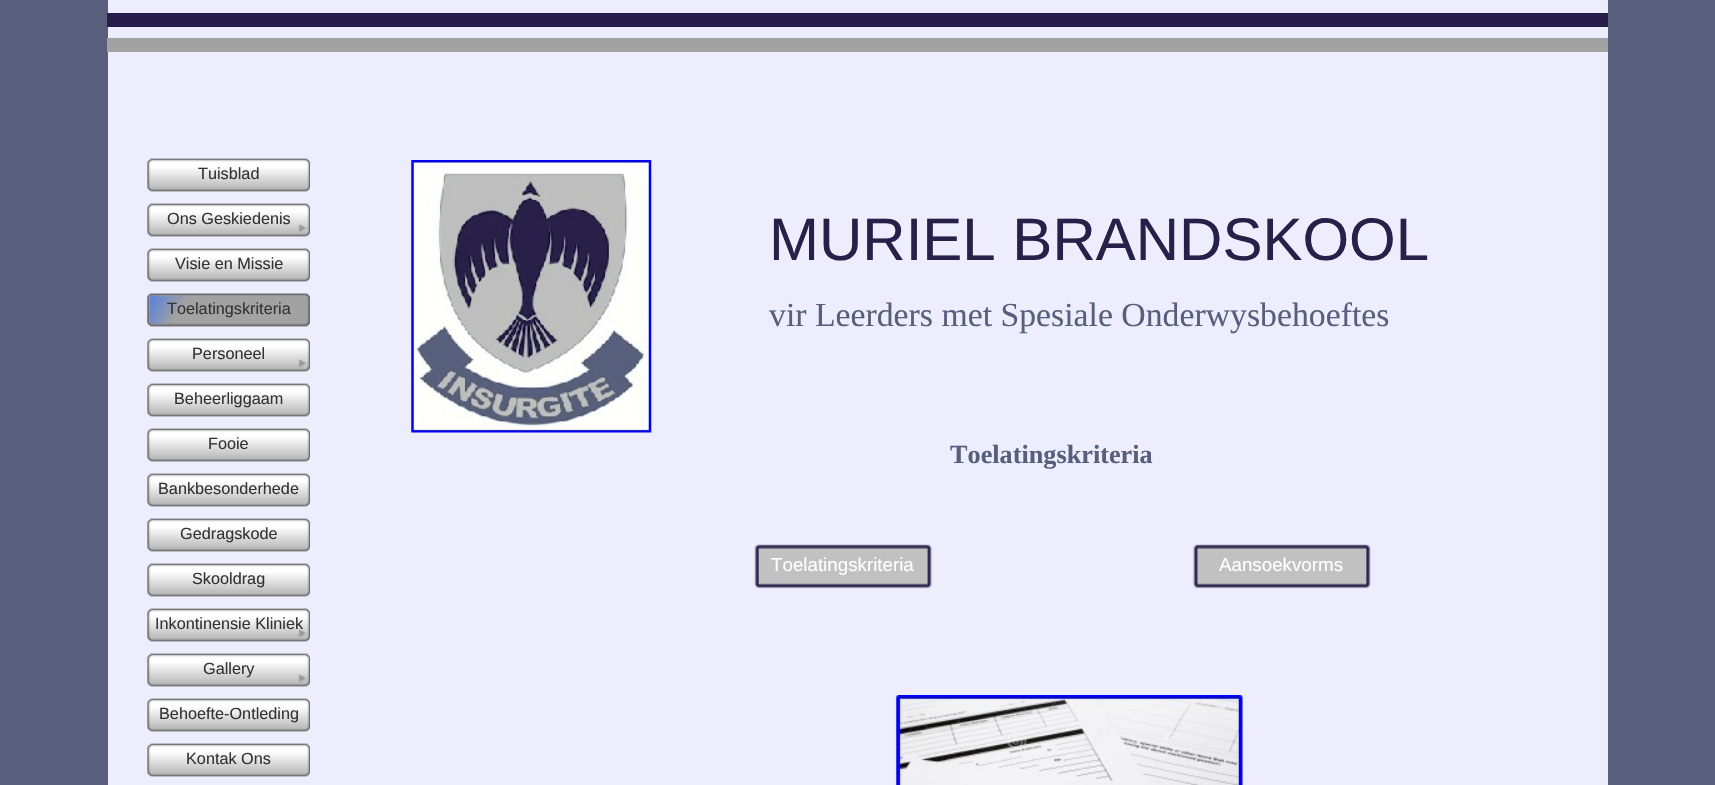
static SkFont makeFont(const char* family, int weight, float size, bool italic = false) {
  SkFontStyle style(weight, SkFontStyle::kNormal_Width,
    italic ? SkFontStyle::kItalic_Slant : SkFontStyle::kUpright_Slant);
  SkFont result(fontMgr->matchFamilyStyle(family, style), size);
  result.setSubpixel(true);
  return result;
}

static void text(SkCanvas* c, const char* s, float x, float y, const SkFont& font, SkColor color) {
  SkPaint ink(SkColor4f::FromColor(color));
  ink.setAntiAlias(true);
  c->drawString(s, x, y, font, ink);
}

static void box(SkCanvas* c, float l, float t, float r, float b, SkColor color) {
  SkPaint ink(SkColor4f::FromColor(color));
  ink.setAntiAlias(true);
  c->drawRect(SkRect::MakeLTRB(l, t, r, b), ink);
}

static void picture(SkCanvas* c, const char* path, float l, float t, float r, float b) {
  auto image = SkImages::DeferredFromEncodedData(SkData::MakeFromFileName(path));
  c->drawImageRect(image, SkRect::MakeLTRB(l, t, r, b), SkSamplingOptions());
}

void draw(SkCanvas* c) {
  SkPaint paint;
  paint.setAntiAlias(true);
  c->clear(0xff585f7c);
  box(c, 108, 0, 1608, 785, 0xffededfd);
  box(c, 107, 13, 1608, 27, 0xff271d49);
  box(c, 107, 38, 1608, 52, 0xffa2a2a2);
  picture(c, "img_01.png", 147, 158, 310, 192);
  picture(c, "img_02.png", 147, 203, 310, 237);
  picture(c, "img_01.png", 147, 248, 310, 282);
  picture(c, "img_03.png", 147, 293, 310, 327);
  picture(c, "img_02.png", 147, 338, 310, 372);
  picture(c, "img_01.png", 147, 383, 310, 417);
  picture(c, "img_01.png", 147, 428, 310, 462);
  picture(c, "img_01.png", 147, 473, 310, 507);
  picture(c, "img_01.png", 147, 518, 310, 552);
  picture(c, "img_04.png", 147, 563, 310, 597);
  picture(c, "img_02.png", 147, 608, 310, 642);
  picture(c, "img_02.png", 147, 653, 310, 687);
  picture(c, "img_01.png", 147, 698, 310, 732);
  picture(c, "img_01.png", 147, 743, 310, 777);
  picture(c, "img_05.png", 411, 160, 652, 433);
  picture(c, "img_06.png", 147, 158, 310, 192);
  SkFont face1 = makeFont("Liberation Sans", 400, 16.25f);
  text(c, "Tuisblad", 198, 179, face1, 0xff333333);
  picture(c, "img_07.png", 147, 203, 310, 237);
  text(c, "Ons Geskiedenis", 167, 224, face1, 0xff333333);
  picture(c, "img_06.png", 147, 248, 310, 282);
  text(c, "Visie en Missie", 175, 269, face1, 0xff333333);
  picture(c, "img_08.png", 147, 293, 310, 327);
  text(c, "Toelatingskriteria", 167, 314, face1, 0xff333333);
  picture(c, "img_07.png", 147, 338, 310, 372);
  text(c, "Personeel", 192, 359, face1, 0xff333333);
  picture(c, "img_06.png", 147, 383, 310, 417);
  text(c, "Beheerliggaam", 174, 404, face1, 0xff333333);
  picture(c, "img_06.png", 147, 428, 310, 462);
  text(c, "Fooie", 208, 449, face1, 0xff333333);
  picture(c, "img_06.png", 147, 473, 310, 507);
  text(c, "Bankbesonderhede", 158, 494, face1, 0xff333333);
  picture(c, "img_06.png", 147, 518, 310, 552);
  text(c, "Gedragskode", 180, 539, face1, 0xff333333);
  picture(c, "img_09.png", 147, 563, 310, 597);
  text(c, "Skooldrag", 192, 584, face1, 0xff333333);
  picture(c, "img_07.png", 147, 608, 310, 642);
  text(c, "Inkontinensie Kliniek", 155, 629, face1, 0xff333333);
  picture(c, "img_07.png", 147, 653, 310, 687);
  text(c, "Gallery", 203, 674, face1, 0xff333333);
  picture(c, "img_06.png", 147, 698, 310, 732);
  text(c, "Behoefte-Ontleding", 159, 719, face1, 0xff333333);
  picture(c, "img_06.png", 147, 743, 310, 777);
  text(c, "Kontak Ons", 186, 764, face1, 0xff333333);
  SkFont face2 = makeFont("Liberation Sans", 400, 60);
  text(c, "MURIEL BRANDSKOOL", 769, 260, face2, 0xff292049);
  SkFont face3 = makeFont("Liberation Serif", 400, 33.75f);
  text(c, "vir Leerders met Spesiale Onderwysbehoeftes", 769, 326, face3, 0xff585f7c);
  SkFont face4 = makeFont("Liberation Serif", 700, 26.25f);
  text(c, "Toelatingskriteria", 950, 463, face4, 0xff585f7c);
  picture(c, "img_10.png", 754, 544, 933, 589);
  SkFont face5 = makeFont("Liberation Sans", 400, 18.75f);
  text(c, "Toelatingskriteria", 771, 571, face5, 0xffffffff);
  picture(c, "img_11.png", 1192, 544, 1371, 589);
  text(c, "Aansoekvorms", 1219, 571, face5, 0xffffffff);
  picture(c, "img_12.png", 896, 695, 1243, 785);
}
